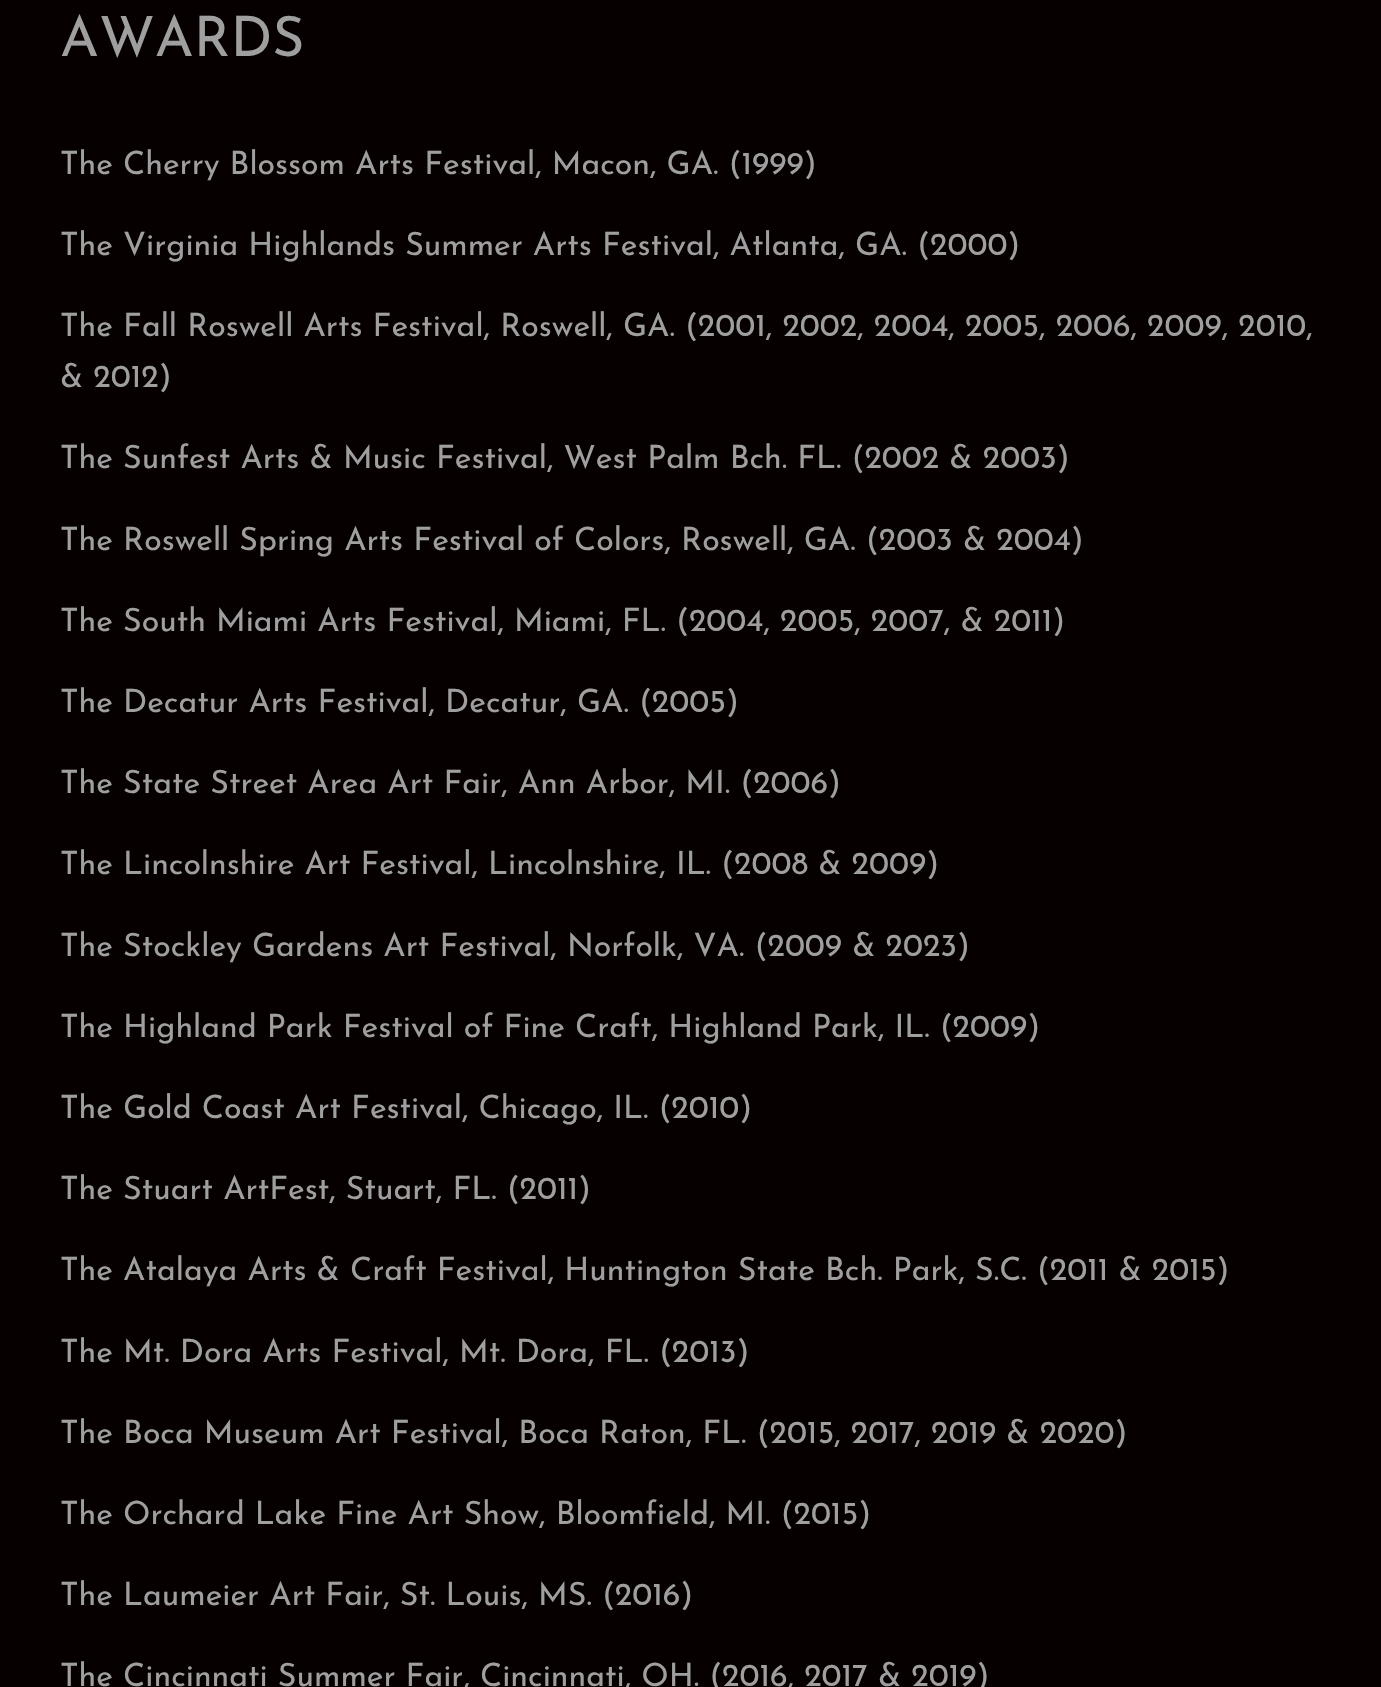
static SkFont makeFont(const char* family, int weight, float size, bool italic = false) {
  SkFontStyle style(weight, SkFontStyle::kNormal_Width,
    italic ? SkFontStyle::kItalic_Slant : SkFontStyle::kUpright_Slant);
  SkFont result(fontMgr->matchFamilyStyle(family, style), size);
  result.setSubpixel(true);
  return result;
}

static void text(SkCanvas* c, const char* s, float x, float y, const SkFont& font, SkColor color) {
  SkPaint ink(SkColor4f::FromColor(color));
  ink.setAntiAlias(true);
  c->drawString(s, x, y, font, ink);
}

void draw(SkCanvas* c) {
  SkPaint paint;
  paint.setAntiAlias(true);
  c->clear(0xff060000);
  SkFont face1 = makeFont("Josefin Sans", 400, 55.5f);
  text(c, "AWARDS", 60, 56, face1, 0xff9f9f9f);
  SkFont face2 = makeFont("Josefin Sans", 400, 32);
  text(c, "The Cherry Blossom Arts Festival, Macon, GA. (1999)", 60, 174, face2, 0xff9f9f9f);
  text(c, "The Virginia Highlands Summer Arts Festival, Atlanta, GA. (2000)", 60, 255, face2, 0xff9f9f9f);
  text(c, "The Fall Roswell Arts Festival, Roswell, GA. (2001, 2002, 2004, 2005, 2006, 2009, 2010,", 60, 336, face2, 0xff9f9f9f);
  text(c, "& 2012)", 60, 387, face2, 0xff9f9f9f);
  text(c, "The Sunfest Arts & Music Festival, West Palm Bch. FL. (2002 & 2003)", 60, 468, face2, 0xff9f9f9f);
  text(c, "The Roswell Spring Arts Festival of Colors, Roswell, GA. (2003 & 2004)", 60, 550, face2, 0xff9f9f9f);
  text(c, "The South Miami Arts Festival, Miami, FL. (2004, 2005, 2007, & 2011)", 60, 631, face2, 0xff9f9f9f);
  text(c, "The Decatur Arts Festival, Decatur, GA. (2005)", 60, 712, face2, 0xff9f9f9f);
  text(c, "The State Street Area Art Fair, Ann Arbor, MI. (2006)", 60, 793, face2, 0xff9f9f9f);
  text(c, "The Lincolnshire Art Festival, Lincolnshire, IL. (2008 & 2009)", 60, 874, face2, 0xff9f9f9f);
  text(c, "The Stockley Gardens Art Festival, Norfolk, VA. (2009 & 2023)", 60, 956, face2, 0xff9f9f9f);
  text(c, "The Highland Park Festival of Fine Craft, Highland Park, IL. (2009)", 60, 1037, face2, 0xff9f9f9f);
  text(c, "The Gold Coast Art Festival, Chicago, IL. (2010)", 60, 1118, face2, 0xff9f9f9f);
  text(c, "The Stuart ArtFest, Stuart, FL. (2011)", 60, 1199, face2, 0xff9f9f9f);
  text(c, "The Atalaya Arts & Craft Festival, Huntington State Bch. Park, S.C. (2011 & 2015)", 60, 1280, face2, 0xff9f9f9f);
  text(c, "The Mt. Dora Arts Festival, Mt. Dora, FL. (2013)", 60, 1362, face2, 0xff9f9f9f);
  text(c, "The Boca Museum Art Festival, Boca Raton, FL. (2015, 2017, 2019 & 2020)", 60, 1443, face2, 0xff9f9f9f);
  text(c, "The Orchard Lake Fine Art Show, Bloomfield, MI. (2015)", 60, 1524, face2, 0xff9f9f9f);
  text(c, "The Laumeier Art Fair, St. Louis, MS. (2016)", 60, 1605, face2, 0xff9f9f9f);
  text(c, "The Cincinnati Summer Fair, Cincinnati, OH. (2016, 2017 & 2019)", 60, 1686, face2, 0xff9f9f9f);
}
